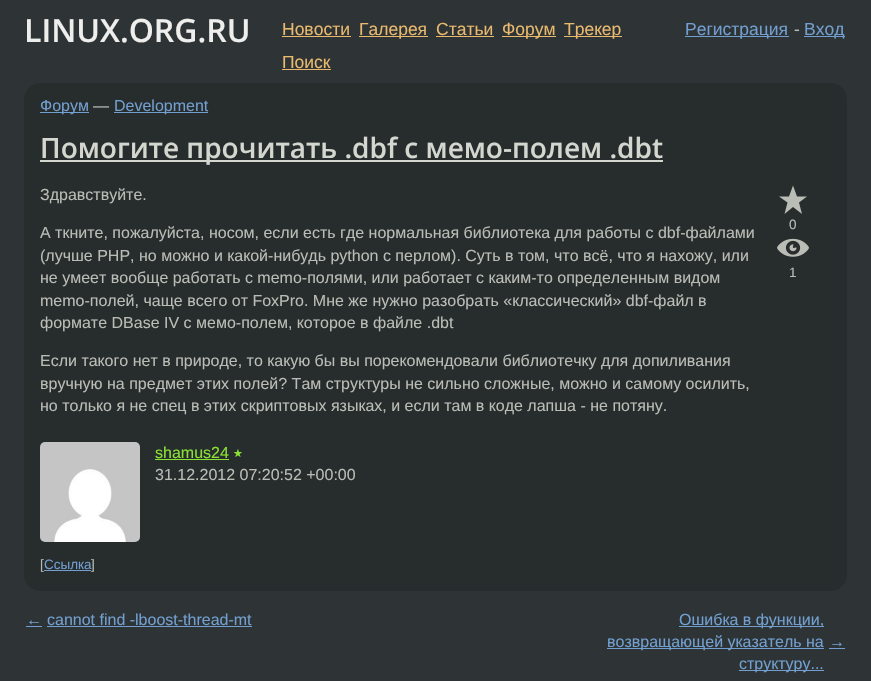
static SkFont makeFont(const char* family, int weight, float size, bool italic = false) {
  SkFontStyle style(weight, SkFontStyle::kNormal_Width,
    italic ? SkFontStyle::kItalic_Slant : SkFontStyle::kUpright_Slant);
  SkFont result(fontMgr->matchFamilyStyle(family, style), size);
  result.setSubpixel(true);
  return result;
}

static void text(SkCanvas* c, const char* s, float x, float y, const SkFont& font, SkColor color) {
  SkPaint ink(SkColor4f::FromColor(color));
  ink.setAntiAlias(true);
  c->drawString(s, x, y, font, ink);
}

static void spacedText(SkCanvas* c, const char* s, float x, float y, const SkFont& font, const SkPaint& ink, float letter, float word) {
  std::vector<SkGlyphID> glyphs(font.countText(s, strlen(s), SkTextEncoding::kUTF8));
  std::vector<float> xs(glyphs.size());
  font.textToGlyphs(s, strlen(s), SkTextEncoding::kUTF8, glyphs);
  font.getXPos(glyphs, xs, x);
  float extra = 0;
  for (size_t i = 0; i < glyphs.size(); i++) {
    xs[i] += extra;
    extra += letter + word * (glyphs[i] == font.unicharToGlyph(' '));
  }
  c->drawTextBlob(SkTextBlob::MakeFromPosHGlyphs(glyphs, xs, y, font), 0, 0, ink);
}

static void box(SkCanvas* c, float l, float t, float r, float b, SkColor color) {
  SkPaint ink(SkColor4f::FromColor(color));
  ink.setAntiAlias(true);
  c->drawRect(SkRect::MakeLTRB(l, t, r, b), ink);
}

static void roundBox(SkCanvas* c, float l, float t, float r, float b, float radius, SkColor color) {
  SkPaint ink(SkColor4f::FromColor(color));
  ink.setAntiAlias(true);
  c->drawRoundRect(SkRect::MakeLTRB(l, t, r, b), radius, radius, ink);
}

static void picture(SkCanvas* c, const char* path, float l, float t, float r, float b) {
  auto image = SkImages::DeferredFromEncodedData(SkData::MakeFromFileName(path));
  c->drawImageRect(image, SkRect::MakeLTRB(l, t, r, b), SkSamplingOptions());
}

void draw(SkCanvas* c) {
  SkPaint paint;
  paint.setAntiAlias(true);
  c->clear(0xff2e3436);
  SkFont face1 = makeFont("Open Sans", 600, 32);
  text(c, "LINUX.ORG.RU", 24, 42, face1, 0xffeeeeec);
  SkFont face2 = makeFont("Liberation Sans", 400, 17.5f);
  text(c, "Новости", 282, 35, face2, 0xffe9b96e);
  box(c, 282, 36, 351, 37, 0xffe9b96e);
  box(c, 359, 36, 428, 37, 0xffe9b96e);
  text(c, "Галерея", 359, 35, face2, 0xffe9b96e);
  text(c, "Статьи", 436, 35, face2, 0xffe9b96e);
  box(c, 436, 36, 494, 37, 0xffe9b96e);
  box(c, 502, 36, 556, 37, 0xffe9b96e);
  text(c, "Форум", 502, 35, face2, 0xffe9b96e);
  box(c, 564, 36, 622, 37, 0xffe9b96e);
  text(c, "Трекер", 564, 35, face2, 0xffe9b96e);
  text(c, "Поиск", 282, 68, face2, 0xffe9b96e);
  box(c, 282, 69, 331, 70, 0xffe9b96e);
  box(c, 685, 36, 789, 37, 0xff729fcf);
  text(c, "Регистрация", 685, 35, face2, 0xff729fcf);
  text(c, "-", 794, 35, face2, 0xffbabdb6);
  box(c, 804, 36, 845, 37, 0xff729fcf);
  text(c, "Вход", 804, 35, face2, 0xff729fcf);
  roundBox(c, 24, 83, 847, 591, 16, 0xff272c2d);
  box(c, 40, 112, 89, 113, 0xff729fcf);
  SkFont face3 = makeFont("Liberation Sans", 400, 16);
  text(c, "Форум", 40, 111, face3, 0xff729fcf);
  text(c, "—", 93, 111, face3, 0xffbabdb6);
  box(c, 114, 112, 208, 113, 0xff729fcf);
  text(c, "Development", 114, 111, face3, 0xff729fcf);
  box(c, 40, 160, 663, 162, 0xffd3d7cf);
  SkFont face4 = makeFont("Open Sans", 600, 28);
  text(c, "Помогите прочитать .dbf с мемо-полем .dbt", 40, 158, face4, 0xffd3d7cf);
  text(c, "Здравствуйте.", 40, 200, face3, 0xffbabdb6);
  text(c, "А ткните, пожалуйста, носом, если есть где нормальная библиотека для работы с dbf-файлами", 40, 238, face3, 0xffbabdb6);
  text(c, "(лучше PHP, но можно и какой-нибудь python с перлом). Суть в том, что всё, что я нахожу, или", 40, 261, face3, 0xffbabdb6);
  text(c, "не умеет вообще работать с memo-полями, или работает с каким-то определенным видом", 40, 283, face3, 0xffbabdb6);
  text(c, "memo-полей, чаще всего от FoxPro. Мне же нужно разобрать «классический» dbf-файл в", 40, 306, face3, 0xffbabdb6);
  text(c, "формате DBase IV с мемо-полем, которое в файле .dbt", 40, 328, face3, 0xffbabdb6);
  text(c, "Если такого нет в природе, то какую бы вы порекомендовали библиотечку для допиливания", 40, 366, face3, 0xffbabdb6);
  text(c, "вручную на предмет этих полей? Там структуры не сильно сложные, можно и самому осилить,", 40, 389, face3, 0xffbabdb6);
  text(c, "но только я не спец в этих скриптовых языках, и если там в коде лапша - не потяну.", 40, 411, face3, 0xffbabdb6);
  paint.setColor(0xffbabdb6);
  c->drawPath(SkPathBuilder().moveTo(793, 185.5f).lineTo(797, 196.5f).lineTo(807, 196.5f).lineTo(799, 202.5f).lineTo(802, 214).lineTo(793, 207).lineTo(784.5f, 214).lineTo(787.5f, 202.5f).lineTo(779, 196.5f).lineTo(789, 196.5f).close().detach(), paint);
  SkFont face5 = makeFont("Liberation Sans", 400, 13.5f);
  text(c, "0", 789, 229, face5, 0xffbabdb6);
  picture(c, "img_01.png", 777, 238, 809, 257);
  text(c, "1", 789, 277, face5, 0xffbabdb6);
  picture(c, "img_02.png", 40, 442, 140, 542);
  text(c, "shamus24", 155, 458, face3, 0xff8ae234);
  box(c, 155, 459, 229, 460, 0xff8ae234);
  SkFont face6 = makeFont("DejaVu Sans", 400, 11);
  paint.setColor(0xff8ae234);
  spacedText(c, "★", 233, 457, face6, paint, 2, 0);
  text(c, "31.12.2012 07:20:52 +00:00", 155, 480, face3, 0xffbabdb6);
  text(c, "[", 40, 569, face5, 0xffbabdb6);
  box(c, 44, 570, 91, 571, 0xff729fcf);
  text(c, "Ссылка", 44, 569, face5, 0xff729fcf);
  text(c, "]", 91, 569, face5, 0xffbabdb6);
  text(c, "←", 26, 625, face3, 0xff729fcf);
  box(c, 26, 626, 42, 627, 0xff729fcf);
  text(c, "cannot find -lboost-thread-mt", 47, 625, face3, 0xff729fcf);
  box(c, 47, 626, 252, 627, 0xff729fcf);
  box(c, 679, 626, 824, 627, 0xff729fcf);
  text(c, "Ошибка в функции,", 679, 625, face3, 0xff729fcf);
  box(c, 607, 648, 824, 649, 0xff729fcf);
  text(c, "возвращающей указатель на", 607, 647, face3, 0xff729fcf);
  box(c, 739, 670, 824, 671, 0xff729fcf);
  text(c, "структуру...", 739, 669, face3, 0xff729fcf);
  text(c, "→", 829, 647, face3, 0xff729fcf);
  box(c, 829, 648, 845, 649, 0xff729fcf);
}
